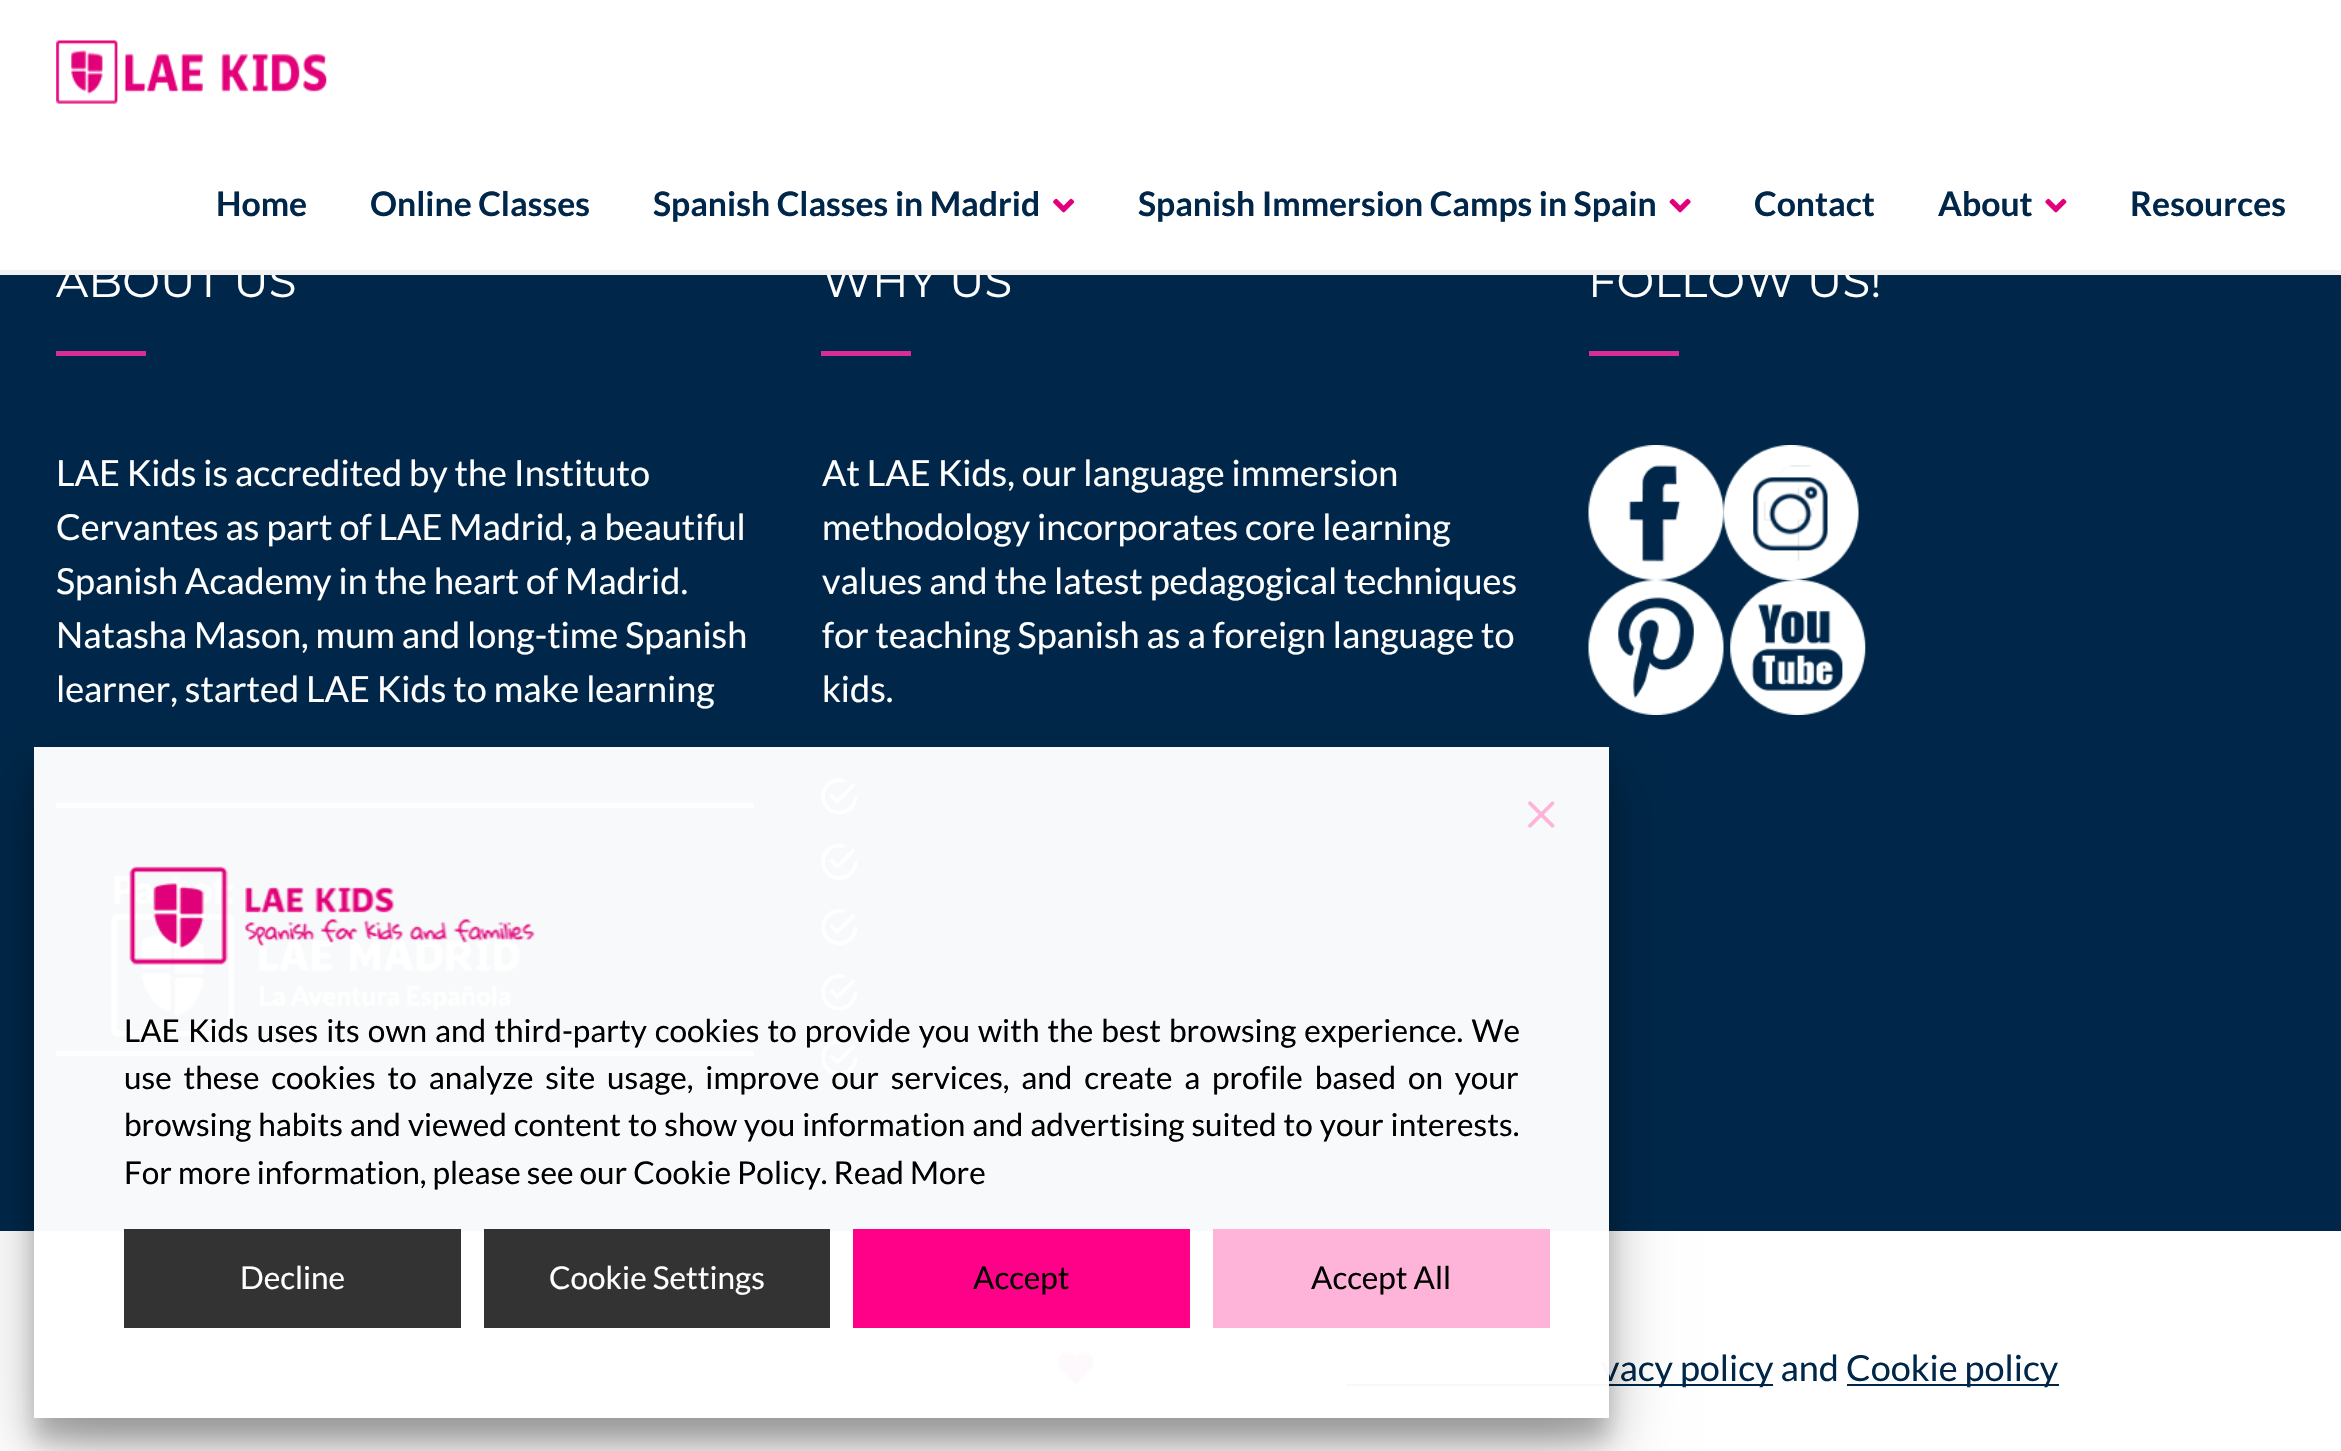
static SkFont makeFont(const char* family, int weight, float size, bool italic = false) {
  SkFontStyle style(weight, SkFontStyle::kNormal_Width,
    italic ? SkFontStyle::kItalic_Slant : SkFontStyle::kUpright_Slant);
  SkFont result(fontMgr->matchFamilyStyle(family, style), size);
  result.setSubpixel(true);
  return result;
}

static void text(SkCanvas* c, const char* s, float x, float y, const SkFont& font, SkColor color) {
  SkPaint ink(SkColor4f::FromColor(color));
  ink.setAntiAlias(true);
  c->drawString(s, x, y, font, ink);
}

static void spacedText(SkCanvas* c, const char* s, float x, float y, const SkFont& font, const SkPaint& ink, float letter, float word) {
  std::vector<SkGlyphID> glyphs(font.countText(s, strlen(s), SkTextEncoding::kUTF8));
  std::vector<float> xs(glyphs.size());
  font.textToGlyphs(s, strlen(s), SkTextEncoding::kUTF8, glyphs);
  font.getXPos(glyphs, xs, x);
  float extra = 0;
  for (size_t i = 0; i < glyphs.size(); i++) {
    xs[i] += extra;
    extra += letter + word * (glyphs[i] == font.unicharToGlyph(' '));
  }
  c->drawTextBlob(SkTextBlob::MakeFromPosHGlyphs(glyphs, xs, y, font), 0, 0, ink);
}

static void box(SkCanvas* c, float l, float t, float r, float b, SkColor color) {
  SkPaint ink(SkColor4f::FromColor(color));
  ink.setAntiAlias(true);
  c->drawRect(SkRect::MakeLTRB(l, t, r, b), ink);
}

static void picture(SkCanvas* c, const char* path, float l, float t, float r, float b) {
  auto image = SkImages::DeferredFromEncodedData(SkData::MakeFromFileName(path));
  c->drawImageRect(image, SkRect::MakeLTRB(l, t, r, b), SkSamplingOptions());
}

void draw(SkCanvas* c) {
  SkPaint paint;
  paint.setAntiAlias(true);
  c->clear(0xffffffff);
  box(c, 0, 275, 2341, 1231, 0xff002749);
  SkFont face1 = makeFont("Montserrat", 400, 45);
  text(c, "ABOUT US", 56, 297, face1, 0xffffffff);
  text(c, "WHY US", 822, 297, face1, 0xffffffff);
  text(c, "FOLLOW US!", 1588, 297, face1, 0xffffffff);
  box(c, 0, 270, 2341, 275, 0xfff2f2f2);
  picture(c, "img_01.png", 56, 40, 327, 104);
  SkFont face2 = makeFont("Lato", 700, 33.75f);
  text(c, "Home", 216, 216, face2, 0xff002749);
  text(c, "Online Classes", 370, 216, face2, 0xff002749);
  text(c, "Spanish Classes in Madrid", 653, 216, face2, 0xff002749);
  picture(c, "img_02.png", 1053, 198, 1075, 213);
  text(c, "Spanish Immersion Camps in Spain", 1138, 216, face2, 0xff002749);
  picture(c, "img_03.png", 1669, 198, 1691, 213);
  text(c, "Contact", 1754, 216, face2, 0xff002749);
  text(c, "About", 1938, 216, face2, 0xff002749);
  picture(c, "img_04.png", 2045, 198, 2067, 213);
  text(c, "Resources", 2130, 216, face2, 0xff002749);
  box(c, 56, 351, 146, 356, 0xffd82c98);
  SkFont face3 = makeFont("Lato", 400, 36);
  text(c, "LAE Kids is accredited by the Instituto", 56, 486, face3, 0xffffffff);
  text(c, "Cervantes as part of LAE Madrid, a beautiful", 56, 540, face3, 0xffffffff);
  text(c, "Spanish Academy in the heart of Madrid.", 56, 594, face3, 0xffffffff);
  text(c, "Natasha Mason, mum and long-time Spanish", 56, 648, face3, 0xffffffff);
  text(c, "learner, started LAE Kids to make learning", 56, 702, face3, 0xffffffff);
  box(c, 56, 1051, 754, 1056, 0xfff2f2f2);
  box(c, 56, 803, 754, 808, 0xfff2f2f2);
  picture(c, "img_05.png", 110, 875, 521, 1038);
  box(c, 821, 351, 911, 356, 0xffd82c98);
  text(c, "At LAE Kids, our language immersion", 822, 486, face3, 0xffffffff);
  text(c, "methodology incorporates core learning", 822, 540, face3, 0xffffffff);
  text(c, "values and the latest pedagogical techniques", 822, 594, face3, 0xffffffff);
  text(c, "for teaching Spanish as a foreign language to", 822, 648, face3, 0xffffffff);
  text(c, "kids.", 822, 702, face3, 0xffffffff);
  picture(c, "img_06.png", 821, 778, 858, 815);
  picture(c, "img_07.png", 821, 843, 858, 880);
  picture(c, "img_08.png", 821, 909, 858, 945);
  picture(c, "img_09.png", 821, 974, 858, 1011);
  picture(c, "img_06.png", 821, 1039, 858, 1076);
  box(c, 1589, 351, 1679, 356, 0xffd82c98);
  picture(c, "img_10.png", 1588, 445, 1724, 580);
  picture(c, "img_11.png", 1723, 445, 1859, 580);
  picture(c, "img_12.png", 1588, 580, 1724, 715);
  picture(c, "img_13.png", 1730, 580, 1866, 715);
  picture(c, "img_14.png", 1057, 1352, 1094, 1384);
  box(c, 1346, 1384, 1773, 1386, 0xff002749);
  text(c, "vacy policy and", 1601, 1381, face3, 0xff002749);
  box(c, 1847, 1384, 2059, 1386, 0xff002749);
  text(c, "Cookie policy", 1846, 1381, face3, 0xff002749);
  c->save();
  c->clipPath(SkPathBuilder(SkPathFillType::kEvenOdd).moveTo(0, 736).lineTo(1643, 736).lineTo(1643, 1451).lineTo(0, 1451).close().moveTo(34, 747).lineTo(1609, 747).lineTo(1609, 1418).lineTo(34, 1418).close().detach(), true);
  paint.setColor(0x38000000);
  paint.setMaskFilter(SkMaskFilter::MakeBlur(kNormal_SkBlurStyle, 11));
  c->drawRect(SkRect::MakeLTRB(34, 770, 1609, 1440), paint);
  paint.setMaskFilter(nullptr);
  c->restore();
  c->save();
  c->clipPath(SkPathBuilder(SkPathFillType::kEvenOdd).moveTo(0, 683).lineTo(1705, 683).lineTo(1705, 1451).lineTo(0, 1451).close().moveTo(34, 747).lineTo(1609, 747).lineTo(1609, 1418).lineTo(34, 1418).close().detach(), true);
  paint.setColor(0x40000000);
  paint.setMaskFilter(SkMaskFilter::MakeBlur(kNormal_SkBlurStyle, 31.5f));
  c->drawRect(SkRect::MakeLTRB(34, 779, 1609, 1449), paint);
  paint.setMaskFilter(nullptr);
  c->restore();
  box(c, 34, 747, 1609, 1418, 0xf7ffffff);
  picture(c, "img_15.png", 1528, 801, 1555, 828);
  picture(c, "img_16.png", 129, 866, 535, 965);
  SkFont face4 = makeFont("Lato", 400, 31.5f);
  paint.setColor(0xff000000);
  spacedText(c, "LAE Kids uses its own and third-party cookies to provide you with the best browsing experience. We", 124, 1042, face4, paint, 0, 2);
  spacedText(c, "use these cookies to analyze site usage, improve our services, and create a profile based on your", 124, 1089, face4, paint, 0, 5.75f);
  spacedText(c, "browsing habits and viewed content to show you information and advertising suited to your interests.", 124, 1136, face4, paint, 0, 0.9f);
  text(c, "For more information, please see our Cookie Policy. Read More", 124, 1184, face4, 0xff000000);
  box(c, 124, 1229, 461, 1328, 0xff333333);
  text(c, "Decline", 240, 1289, face4, 0xffffffff);
  box(c, 484, 1229, 830, 1328, 0xff333333);
  text(c, "Cookie Settings", 549, 1289, face4, 0xffffffff);
  box(c, 853, 1229, 1190, 1328, 0xffff0088);
  text(c, "Accept", 973, 1289, face4, 0xff000000);
  box(c, 1213, 1229, 1550, 1328, 0xfffeb4d8);
  text(c, "Accept All", 1311, 1289, face4, 0xff000000);
}
